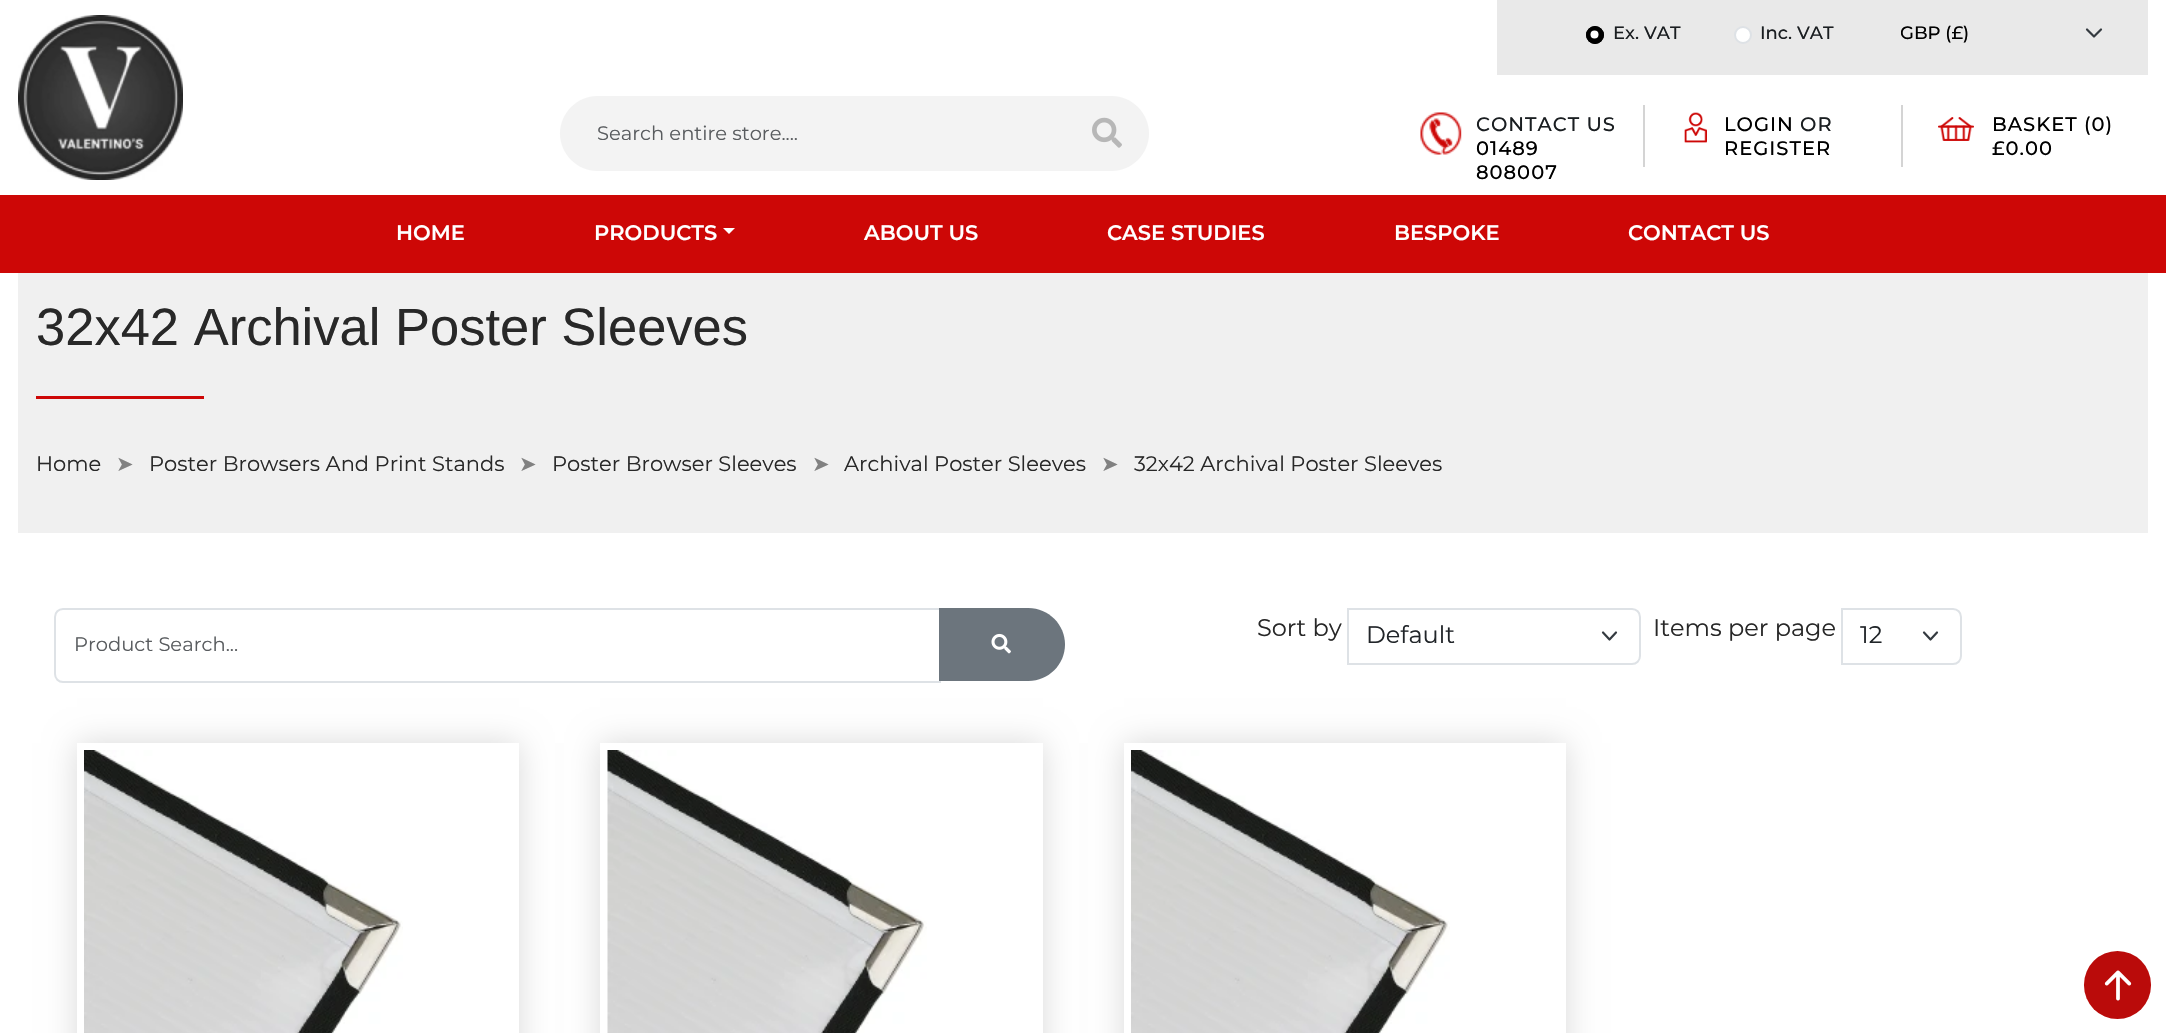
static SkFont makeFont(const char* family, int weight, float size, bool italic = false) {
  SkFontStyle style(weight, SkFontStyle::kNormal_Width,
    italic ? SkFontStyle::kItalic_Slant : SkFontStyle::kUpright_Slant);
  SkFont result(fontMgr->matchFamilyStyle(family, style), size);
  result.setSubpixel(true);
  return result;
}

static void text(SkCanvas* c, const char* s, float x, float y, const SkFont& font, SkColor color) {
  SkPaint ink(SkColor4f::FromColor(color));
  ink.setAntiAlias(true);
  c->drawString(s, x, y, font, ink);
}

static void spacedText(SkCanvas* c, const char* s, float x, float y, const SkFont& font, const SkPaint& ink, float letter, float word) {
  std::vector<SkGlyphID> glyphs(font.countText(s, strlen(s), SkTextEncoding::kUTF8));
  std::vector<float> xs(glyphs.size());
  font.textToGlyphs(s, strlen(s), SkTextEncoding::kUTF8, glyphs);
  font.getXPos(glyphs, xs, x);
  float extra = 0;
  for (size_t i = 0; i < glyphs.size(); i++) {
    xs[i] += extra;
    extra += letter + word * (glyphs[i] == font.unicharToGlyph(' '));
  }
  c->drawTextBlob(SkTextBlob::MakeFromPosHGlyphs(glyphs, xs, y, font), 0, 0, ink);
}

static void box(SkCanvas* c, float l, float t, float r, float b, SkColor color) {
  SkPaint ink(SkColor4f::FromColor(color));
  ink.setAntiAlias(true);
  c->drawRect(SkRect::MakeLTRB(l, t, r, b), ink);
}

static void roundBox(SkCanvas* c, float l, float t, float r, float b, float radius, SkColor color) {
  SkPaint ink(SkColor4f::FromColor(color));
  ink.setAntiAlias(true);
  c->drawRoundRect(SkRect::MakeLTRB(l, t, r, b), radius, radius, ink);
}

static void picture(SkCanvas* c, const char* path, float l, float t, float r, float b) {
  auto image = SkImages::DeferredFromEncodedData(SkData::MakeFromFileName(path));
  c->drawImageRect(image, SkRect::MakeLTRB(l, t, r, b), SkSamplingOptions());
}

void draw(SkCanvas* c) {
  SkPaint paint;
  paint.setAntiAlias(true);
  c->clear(0xffffffff);
  picture(c, "img_01.png", 18, 15, 183, 180);
  paint.setColor(0xfff3f3f3);
  c->drawPath(SkPathBuilder().moveTo(597.5f, 96).lineTo(1070, 96).lineTo(1070, 171).lineTo(597.5f, 171).cubicTo(577, 171, 560, 154, 560, 133.5f).cubicTo(560, 113, 577, 96, 597.5f, 96).close().detach(), paint);
  SkFont face1 = makeFont("Montserrat", 400, 19.5f);
  text(c, "Search entire store....", 597, 140, face1, 0xff595c5f);
  c->drawPath(SkPathBuilder().moveTo(1068, 96).lineTo(1111.5f, 96).cubicTo(1132, 96, 1149, 113, 1149, 133.5f).cubicTo(1149, 154, 1132, 171, 1111.5f, 171).lineTo(1068, 171).close().detach(), paint);
  picture(c, "img_02.png", 1092, 117, 1122, 148);
  box(c, 1497, 0, 2148, 75, 0xffe9e9e9);
  paint.setColor(0xff000000);
  c->drawCircle(1595, 35, 9, paint);
  paint.setColor(0xffffffff);
  c->drawCircle(1594.5f, 34.5f, 4, paint);
  paint.setStyle(SkPaint::kStroke_Style);
  paint.setStrokeWidth(2);
  paint.setColor(0xff000000);
  c->drawCircle(1595, 35, 8, paint);
  SkFont face2 = makeFont("Montserrat", 500, 18);
  text(c, "Ex. VAT", 1613, 39, face2, 0xff1a1e21);
  paint.setStyle(SkPaint::kFill_Style);
  paint.setColor(0xffffffff);
  c->drawCircle(1743, 35, 8, paint);
  paint.setStyle(SkPaint::kStroke_Style);
  paint.setColor(0xffdee2e6);
  c->drawCircle(1743, 35, 8, paint);
  text(c, "Inc. VAT", 1760, 39, face2, 0xff1a1e21);
  paint.setStrokeWidth(2.2f);
  paint.setStrokeCap(SkPaint::kRound_Cap);
  paint.setStrokeJoin(SkPaint::kRound_Join);
  paint.setColor(0xff343a40);
  c->drawPath(SkPathBuilder().moveTo(2087, 29.5f).lineTo(2094, 36.5f).lineTo(2101, 29.5f).detach(), paint);
  c->save();
  c->clipRect(SkRect::MakeLTRB(1901, 20, 2118, 47));
  text(c, "GBP (£)", 1900, 39, face2, 0xff000000);
  c->restore();
  picture(c, "img_03.png", 1420, 112, 1462, 155);
  SkFont face3 = makeFont("Montserrat", 500, 19.5f);
  paint.setStyle(SkPaint::kFill_Style);
  paint.setColor(0xff1a1e21);
  spacedText(c, "CONTACT US", 1476, 131, face3, paint, 1, 0);
  paint.setColor(0xff000000);
  spacedText(c, "01489", 1476, 155, face3, paint, 1, 0);
  spacedText(c, "808007", 1476, 179, face3, paint, 1, 0);
  box(c, 1643, 105, 1645, 167, 0xffd4d4d4);
  picture(c, "img_04.png", 1684, 112, 1707, 143);
  spacedText(c, "LOGIN", 1724, 131, face3, paint, 1, 0);
  paint.setColor(0xff1a1e21);
  spacedText(c, "OR", 1800, 131, face3, paint, 1, 0);
  paint.setColor(0xff000000);
  spacedText(c, "REGISTER", 1724, 155, face3, paint, 1, 0);
  box(c, 1901, 105, 1903, 167, 0xffd4d4d4);
  picture(c, "img_05.png", 1938, 117, 1974, 141);
  spacedText(c, "BASKET (0)", 1992, 131, face3, paint, 1, 0);
  spacedText(c, "£0.00", 1992, 155, face3, paint, 1, 0);
  box(c, 0, 195, 2166, 273, 0xffcd0706);
  SkFont face4 = makeFont("Montserrat", 600, 21);
  text(c, "HOME", 396, 240, face4, 0xffffffff);
  text(c, "PRODUCTS", 594, 240, face4, 0xffffffff);
  paint.setColor(0xffffffff);
  c->drawPath(SkPathBuilder().moveTo(723, 228).lineTo(735, 228).lineTo(729, 234).close().detach(), paint);
  text(c, "ABOUT US", 864, 240, face4, 0xffffffff);
  text(c, "CASE STUDIES", 1107, 240, face4, 0xffffffff);
  text(c, "BESPOKE", 1394, 240, face4, 0xffffffff);
  text(c, "CONTACT US", 1628, 240, face4, 0xffffffff);
  box(c, 18, 273, 2148, 533, 0xfff0f0f0);
  SkFont face5 = makeFont("Liberation Sans", 400, 52.5f);
  text(c, "32x42 Archival Poster Sleeves", 36, 345, face5, 0xff282828);
  box(c, 36, 396, 204, 399, 0xffcd0706);
  SkFont face6 = makeFont("Montserrat", 400, 21);
  text(c, "Home", 36, 471, face6, 0xff282828);
  SkFont face7 = makeFont("DejaVu Sans", 400, 21);
  text(c, "➤", 116, 471, face7, 0xff818181);
  text(c, "Poster Browsers And Print Stands", 149, 471, face6, 0xff282828);
  text(c, "➤", 519, 471, face7, 0xff818181);
  text(c, "Poster Browser Sleeves", 552, 471, face6, 0xff282828);
  text(c, "➤", 812, 471, face7, 0xff818181);
  text(c, "Archival Poster Sleeves", 844, 471, face6, 0xff282828);
  text(c, "➤", 1101, 471, face7, 0xff818181);
  text(c, "32x42 Archival Poster Sleeves", 1134, 471, face6, 0xff282828);
  paint.setStyle(SkPaint::kStroke_Style);
  paint.setStrokeWidth(2);
  paint.setStrokeCap(SkPaint::kButt_Cap);
  paint.setStrokeJoin(SkPaint::kMiter_Join);
  paint.setColor(0xffdee2e6);
  c->drawPath(SkPathBuilder().moveTo(63, 609).lineTo(940, 609).lineTo(940, 682).lineTo(63, 682).cubicTo(58.5f, 682, 55, 678.5f, 55, 674).lineTo(55, 617).cubicTo(55, 612.5f, 58.5f, 609, 63, 609).close().detach(), paint);
  text(c, "Product Search...", 74, 651, face1, 0xff595c5f);
  paint.setStyle(SkPaint::kFill_Style);
  paint.setColor(0xff6c757d);
  c->drawPath(SkPathBuilder().moveTo(939, 608).lineTo(1028.5f, 608).cubicTo(1048.5f, 608, 1065, 624.5f, 1065, 644.5f).cubicTo(1065, 664.5f, 1048.5f, 681, 1028.5f, 681).lineTo(939, 681).close().detach(), paint);
  picture(c, "img_06.png", 991, 633, 1011, 654);
  SkFont face8 = makeFont("Montserrat", 400, 24);
  text(c, "Sort by", 1257, 636, face8, 0xff282828);
  paint.setStyle(SkPaint::kStroke_Style);
  paint.setStrokeWidth(2.2f);
  paint.setStrokeCap(SkPaint::kRound_Cap);
  paint.setStrokeJoin(SkPaint::kRound_Join);
  paint.setColor(0xff343a40);
  c->drawPath(SkPathBuilder().moveTo(1603, 632.5f).lineTo(1609.5f, 639.5f).lineTo(1616, 632.5f).detach(), paint);
  paint.setStrokeWidth(2);
  paint.setStrokeCap(SkPaint::kButt_Cap);
  paint.setStrokeJoin(SkPaint::kMiter_Join);
  paint.setColor(0xffdee2e6);
  c->drawPath(SkPathBuilder().moveTo(1348, 609).lineTo(1632, 609).cubicTo(1636.5f, 609, 1640, 612.5f, 1640, 617).lineTo(1640, 656).cubicTo(1640, 660.5f, 1636.5f, 664, 1632, 664).lineTo(1348, 664).close().detach(), paint);
  text(c, "Default", 1366, 643, face8, 0xff212529);
  text(c, "Items per page", 1653, 636, face8, 0xff282828);
  paint.setStrokeWidth(2.2f);
  paint.setStrokeCap(SkPaint::kRound_Cap);
  paint.setStrokeJoin(SkPaint::kRound_Join);
  paint.setColor(0xff343a40);
  c->drawPath(SkPathBuilder().moveTo(1924, 632.5f).lineTo(1930.5f, 639.5f).lineTo(1937, 632.5f).detach(), paint);
  paint.setStrokeWidth(2);
  paint.setStrokeCap(SkPaint::kButt_Cap);
  paint.setStrokeJoin(SkPaint::kMiter_Join);
  paint.setColor(0xffdee2e6);
  c->drawPath(SkPathBuilder().moveTo(1842, 609).lineTo(1953, 609).cubicTo(1957.5f, 609, 1961, 612.5f, 1961, 617).lineTo(1961, 656).cubicTo(1961, 660.5f, 1957.5f, 664, 1953, 664).lineTo(1842, 664).close().detach(), paint);
  text(c, "12", 1860, 643, face8, 0xff212529);
  c->save();
  c->clipPath(SkPathBuilder(SkPathFillType::kEvenOdd).moveTo(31, 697).lineTo(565, 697).lineTo(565, 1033).lineTo(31, 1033).close().moveTo(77, 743).lineTo(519, 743).lineTo(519, 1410).lineTo(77, 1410).close().detach(), true);
  paint.setStyle(SkPaint::kFill_Style);
  paint.setColor(0x26000000);
  paint.setMaskFilter(SkMaskFilter::MakeBlur(kNormal_SkBlurStyle, 15));
  c->drawRect(SkRect::MakeLTRB(77, 743, 519, 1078), paint);
  paint.setMaskFilter(nullptr);
  c->restore();
  picture(c, "img_07.png", 84, 750, 403, 1033);
  c->save();
  c->clipPath(SkPathBuilder(SkPathFillType::kEvenOdd).moveTo(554, 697).lineTo(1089, 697).lineTo(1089, 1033).lineTo(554, 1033).close().moveTo(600, 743).lineTo(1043, 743).lineTo(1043, 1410).lineTo(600, 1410).close().detach(), true);
  paint.setMaskFilter(SkMaskFilter::MakeBlur(kNormal_SkBlurStyle, 15));
  c->drawRect(SkRect::MakeLTRB(600, 743, 1043, 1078), paint);
  paint.setMaskFilter(nullptr);
  c->restore();
  picture(c, "img_08.png", 607, 750, 927, 1033);
  c->save();
  c->clipPath(SkPathBuilder(SkPathFillType::kEvenOdd).moveTo(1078, 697).lineTo(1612, 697).lineTo(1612, 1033).lineTo(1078, 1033).close().moveTo(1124, 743).lineTo(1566, 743).lineTo(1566, 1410).lineTo(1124, 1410).close().detach(), true);
  paint.setMaskFilter(SkMaskFilter::MakeBlur(kNormal_SkBlurStyle, 15));
  c->drawRect(SkRect::MakeLTRB(1124, 743, 1566, 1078), paint);
  paint.setMaskFilter(nullptr);
  c->restore();
  picture(c, "img_09.png", 1131, 750, 1450, 1033);
  roundBox(c, 2084, 951, 2151, 1019, 33.5f, 0xffba0b0a);
  picture(c, "img_10.png", 2104, 970, 2132, 1001);
}
